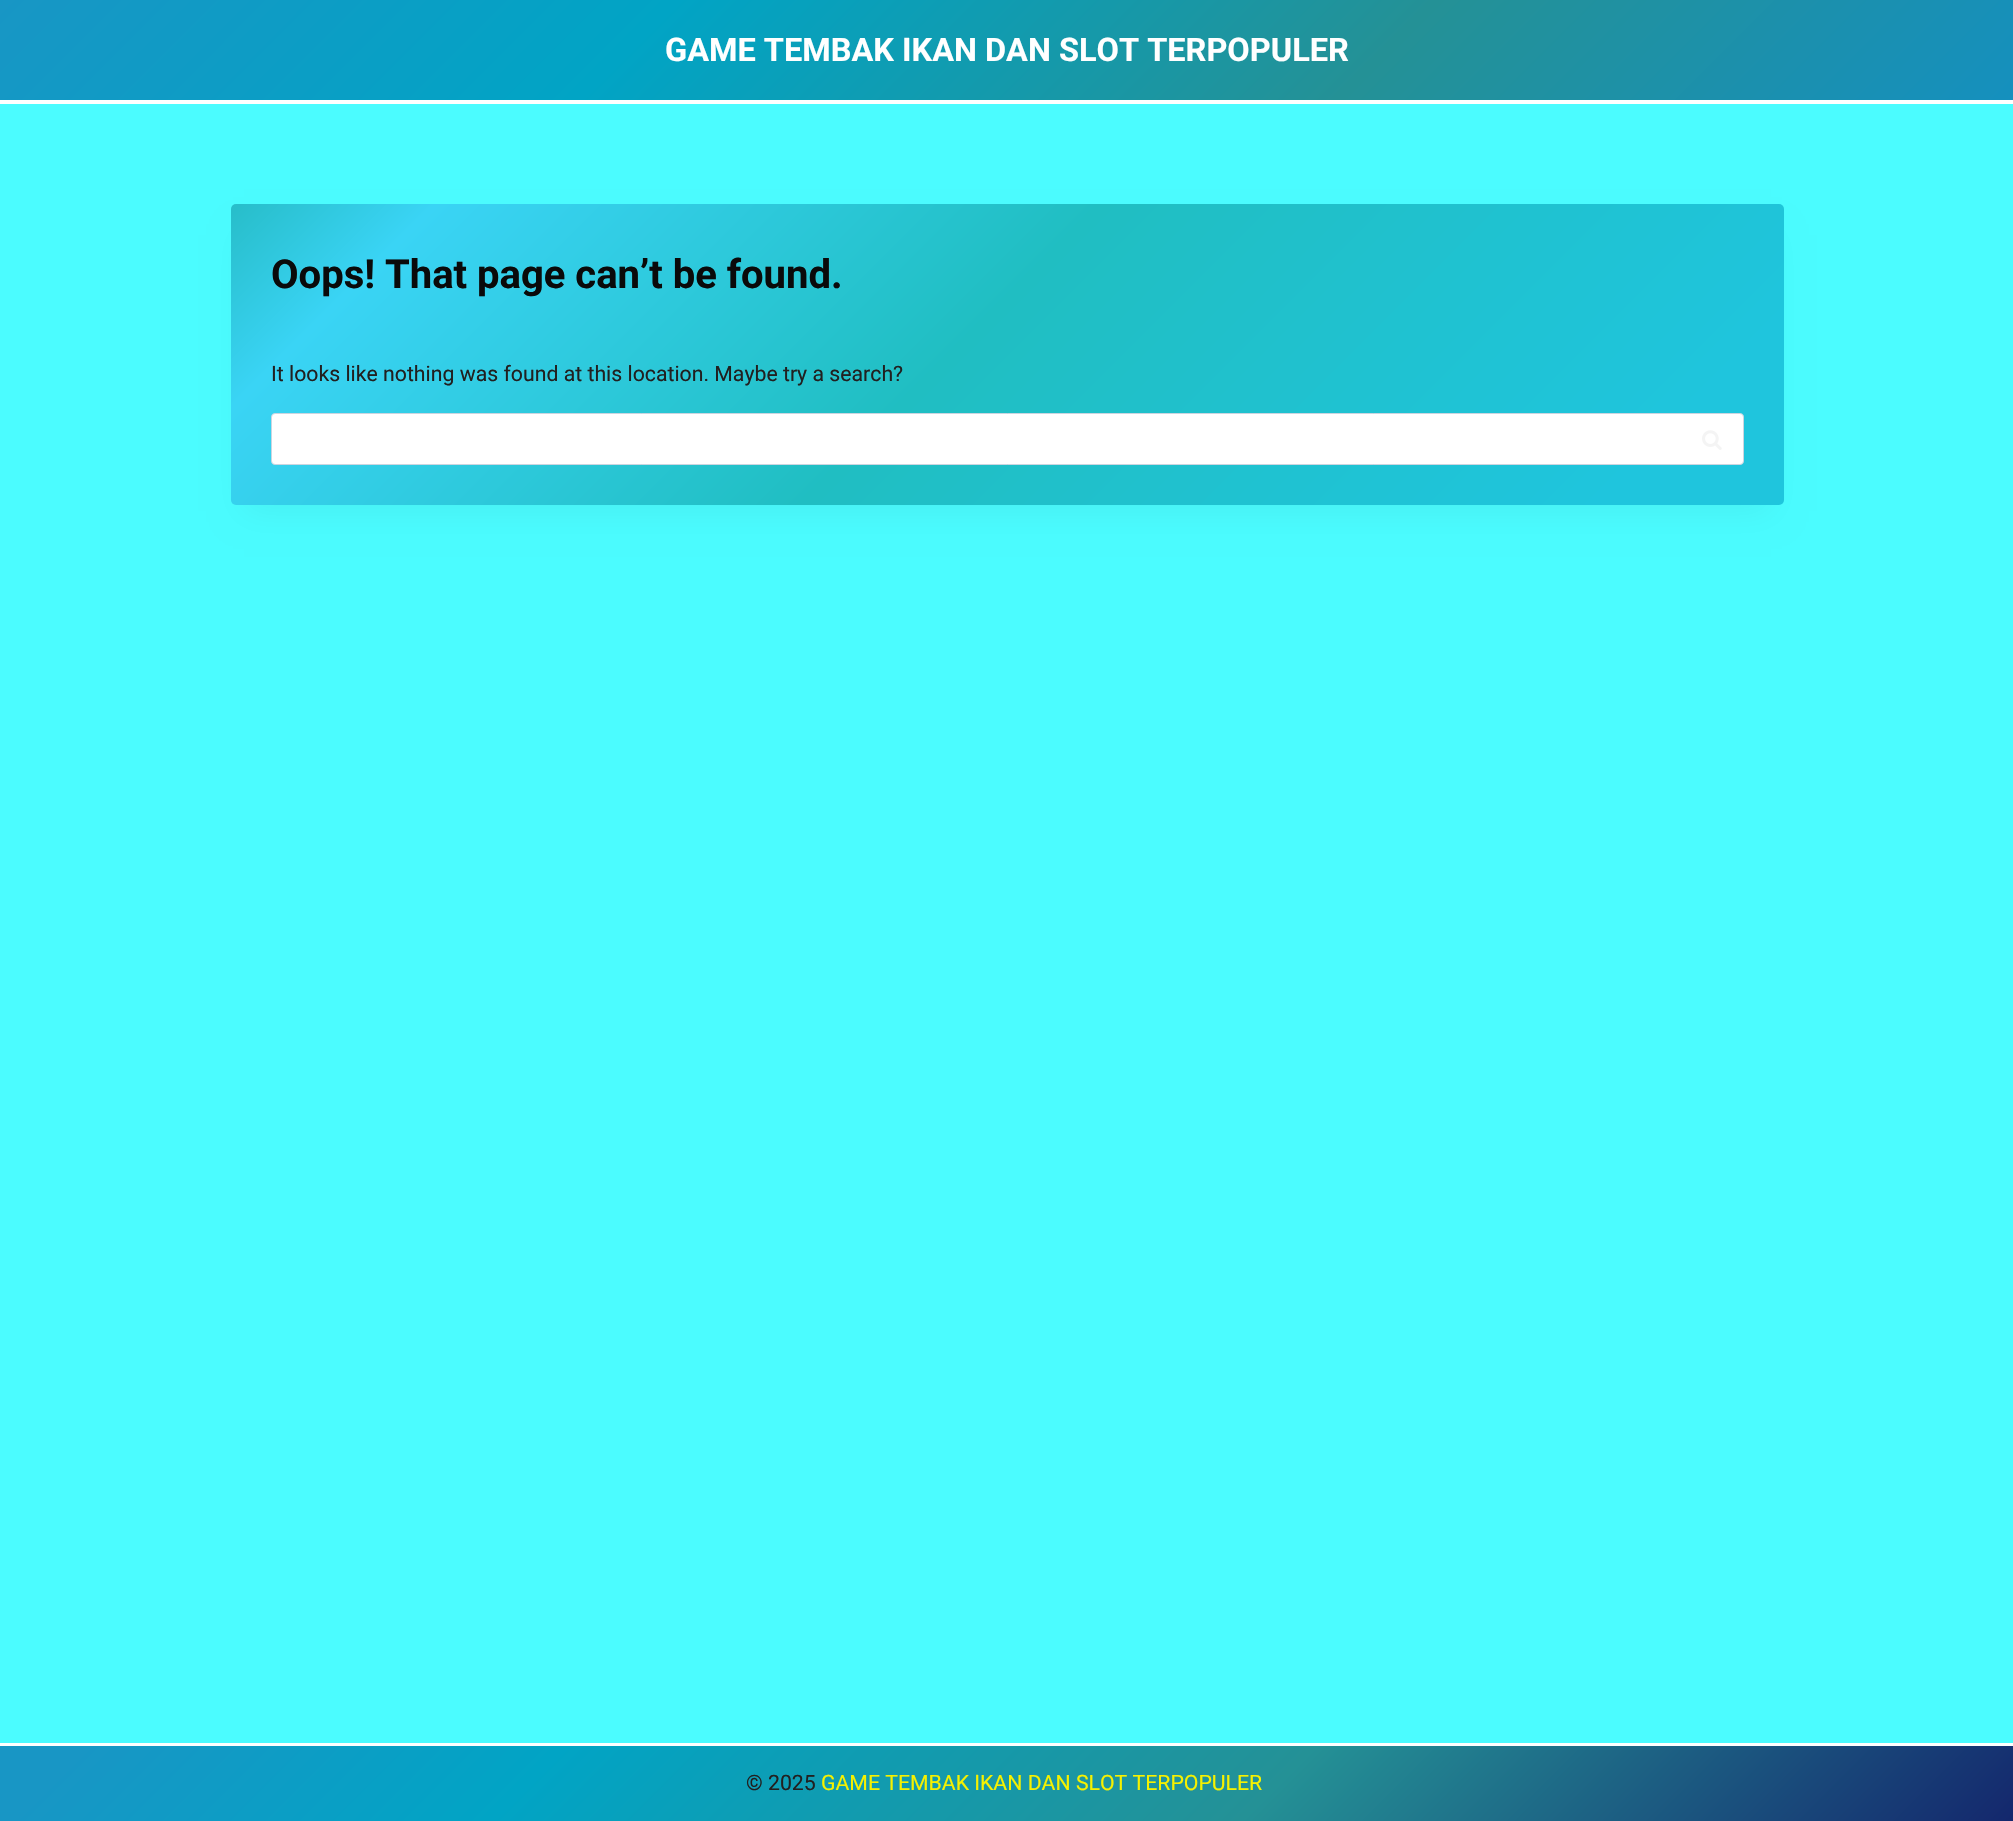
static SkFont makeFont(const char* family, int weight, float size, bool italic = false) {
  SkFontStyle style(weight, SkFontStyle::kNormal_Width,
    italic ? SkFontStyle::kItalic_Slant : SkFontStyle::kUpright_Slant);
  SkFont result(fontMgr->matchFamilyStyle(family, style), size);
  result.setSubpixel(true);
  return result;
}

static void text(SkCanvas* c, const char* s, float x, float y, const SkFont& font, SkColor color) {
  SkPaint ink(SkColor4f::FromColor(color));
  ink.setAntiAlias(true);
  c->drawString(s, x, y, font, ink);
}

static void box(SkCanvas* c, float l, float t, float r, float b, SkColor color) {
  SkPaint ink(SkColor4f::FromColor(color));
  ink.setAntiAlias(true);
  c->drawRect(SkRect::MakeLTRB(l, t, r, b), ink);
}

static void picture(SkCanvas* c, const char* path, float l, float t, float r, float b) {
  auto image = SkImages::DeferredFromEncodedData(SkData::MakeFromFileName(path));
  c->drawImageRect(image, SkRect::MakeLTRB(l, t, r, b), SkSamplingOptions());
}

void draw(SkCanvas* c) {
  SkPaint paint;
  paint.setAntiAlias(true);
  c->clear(0xff4bfcff);
  {
    const SkColor colors[] = {0xff1896c5, 0xff01a4c5, 0xff249196, 0xff1590be};
    const float stops[] = {0, 0.32f, 0.68f, 1};
    const SkPoint ends[] = {{478, -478}, {1535, 578}};
    paint.setShader(SkGradientShader::MakeLinear(ends, colors, stops, 4, SkTileMode::kClamp));
    paint.setAlpha(255);
  }
  c->drawRect(SkRect::MakeLTRB(0, 0, 2013, 100), paint);
  box(c, 0, 100, 2013, 104, 0xffffffff);
  SkFont face1 = makeFont("Roboto", 700, 32.5f);
  text(c, "GAME TEMBAK IKAN DAN SLOT TERPOPULER", 665, 61, face1, 0xffffffff);
  paint.setShader(nullptr);
  paint.setColor(0x0d000000);
  paint.setMaskFilter(SkMaskFilter::MakeBlur(kNormal_SkBlurStyle, 15.5f));
  c->drawRect(SkRect::MakeLTRB(244, 235, 1771, 511), paint);
  paint.setMaskFilter(nullptr);
  {
    const SkColor colors[] = {0xff27bdc9, 0xff3ad4f5, 0xff20bec2, 0xff1fc5dd};
    const float stops[] = {0, 0.11f, 0.47f, 0.9f};
    const SkPoint ends[] = {{544, -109}, {1471, 818}};
    paint.setShader(SkGradientShader::MakeLinear(ends, colors, stops, 4, SkTileMode::kClamp));
    paint.setAlpha(255);
  }
  c->drawRoundRect(SkRect::MakeLTRB(231, 204, 1784, 505), 5, 5, paint);
  SkFont face2 = makeFont("Roboto", 700, 40);
  text(c, "Oops! That page can’t be found.", 271, 288, face2, 0xff0a0a0a);
  SkFont face3 = makeFont("Roboto", 400, 21.25f);
  text(c, "It looks like nothing was found at this location. Maybe try a search?", 271, 381, face3, 0xff212020);
  paint.setShader(nullptr);
  paint.setColor(0xffffffff);
  c->drawRoundRect(SkRect::MakeLTRB(271.5f, 413.5f, 1743.5f, 464.5f), 3.5f, 3.5f, paint);
  paint.setStyle(SkPaint::kStroke_Style);
  paint.setStrokeWidth(1);
  paint.setColor(0xffcbd5e0);
  c->drawRoundRect(SkRect::MakeLTRB(271.5f, 413.5f, 1743.5f, 464.5f), 3.5f, 3.5f, paint);
  picture(c, "img_01.png", 1702, 430, 1722, 450);
  paint.setStyle(SkPaint::kFill_Style);
  {
    const SkColor colors[] = {0xff1896c5, 0xff01a4c5, 0xff249196, 0xff14276d};
    const float stops[] = {0.04f, 0.27f, 0.63f, 1};
    const SkPoint ends[] = {{484, 1261}, {1529, 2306}};
    paint.setShader(SkGradientShader::MakeLinear(ends, colors, stops, 4, SkTileMode::kClamp));
    paint.setAlpha(255);
  }
  c->drawRect(SkRect::MakeLTRB(0, 1746, 2013, 1821), paint);
  box(c, 0, 1743, 2013, 1746, 0xffffffff);
  text(c, "© 2025", 746, 1790, face3, 0xff212020);
  text(c, "GAME TEMBAK IKAN DAN SLOT TERPOPULER", 821, 1790, face3, 0xfff6f100);
}
